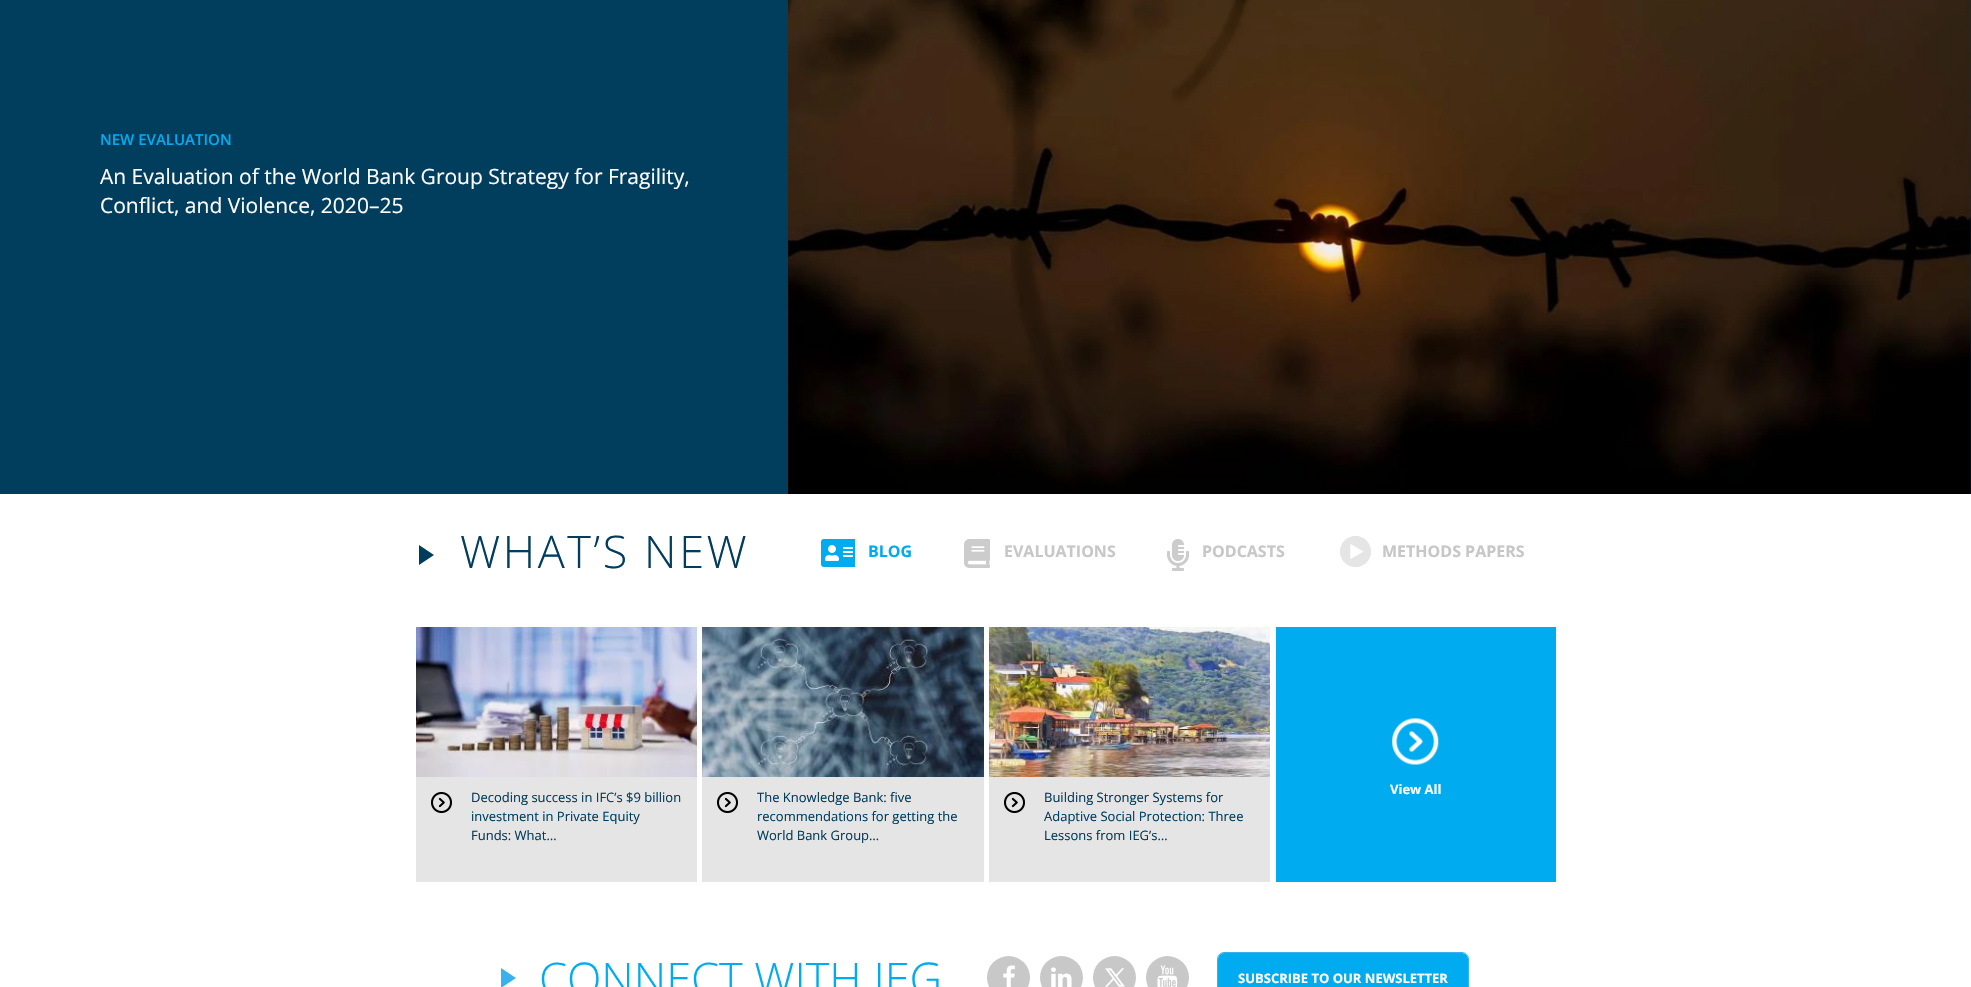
static SkFont makeFont(const char* family, int weight, float size, bool italic = false) {
  SkFontStyle style(weight, SkFontStyle::kNormal_Width,
    italic ? SkFontStyle::kItalic_Slant : SkFontStyle::kUpright_Slant);
  SkFont result(fontMgr->matchFamilyStyle(family, style), size);
  result.setSubpixel(true);
  return result;
}

static void text(SkCanvas* c, const char* s, float x, float y, const SkFont& font, SkColor color) {
  SkPaint ink(SkColor4f::FromColor(color));
  ink.setAntiAlias(true);
  c->drawString(s, x, y, font, ink);
}

static void spacedText(SkCanvas* c, const char* s, float x, float y, const SkFont& font, const SkPaint& ink, float letter, float word) {
  std::vector<SkGlyphID> glyphs(font.countText(s, strlen(s), SkTextEncoding::kUTF8));
  std::vector<float> xs(glyphs.size());
  font.textToGlyphs(s, strlen(s), SkTextEncoding::kUTF8, glyphs);
  font.getXPos(glyphs, xs, x);
  float extra = 0;
  for (size_t i = 0; i < glyphs.size(); i++) {
    xs[i] += extra;
    extra += letter + word * (glyphs[i] == font.unicharToGlyph(' '));
  }
  c->drawTextBlob(SkTextBlob::MakeFromPosHGlyphs(glyphs, xs, y, font), 0, 0, ink);
}

static void box(SkCanvas* c, float l, float t, float r, float b, SkColor color) {
  SkPaint ink(SkColor4f::FromColor(color));
  ink.setAntiAlias(true);
  c->drawRect(SkRect::MakeLTRB(l, t, r, b), ink);
}

static void roundBox(SkCanvas* c, float l, float t, float r, float b, float radius, SkColor color) {
  SkPaint ink(SkColor4f::FromColor(color));
  ink.setAntiAlias(true);
  c->drawRoundRect(SkRect::MakeLTRB(l, t, r, b), radius, radius, ink);
}

static void picture(SkCanvas* c, const char* path, float l, float t, float r, float b) {
  auto image = SkImages::DeferredFromEncodedData(SkData::MakeFromFileName(path));
  c->drawImageRect(image, SkRect::MakeLTRB(l, t, r, b), SkSamplingOptions());
}

void draw(SkCanvas* c) {
  SkPaint paint;
  paint.setAntiAlias(true);
  c->clear(0xffffffff);
  box(c, 0, 0, 1971, 494, 0xff013d5c);
  SkFont face1 = makeFont("Open Sans", 600, 15);
  text(c, "NEW EVALUATION", 100, 145, face1, 0xff00acef);
  SkFont face2 = makeFont("Open Sans", 400, 21);
  text(c, "An Evaluation of the World Bank Group Strategy for Fragility,", 100, 184, face2, 0xffffffff);
  text(c, "Conflict, and Violence, 2020–25", 100, 213, face2, 0xffffffff);
  picture(c, "img_01.png", 788, 0, 1971, 494);
  paint.setColor(0xff003d5d);
  c->drawPath(SkPathBuilder().moveTo(419, 565).lineTo(419, 545).lineTo(434, 555).close().detach(), paint);
  SkFont face3 = makeFont("Open Sans", 300, 45);
  paint.setColor(0xff013d5c);
  spacedText(c, "WHAT’S NEW", 460, 568, face3, paint, 2.6f, 0);
  picture(c, "img_02.png", 821, 539, 855, 567);
  SkFont face4 = makeFont("Open Sans", 700, 16);
  text(c, "BLOG", 868, 557, face4, 0xff00acef);
  picture(c, "img_03.png", 964, 539, 990, 568);
  text(c, "EVALUATIONS", 1004, 557, face4, 0xffc7c7c7);
  picture(c, "img_04.png", 1167, 539, 1189, 571);
  text(c, "PODCASTS", 1202, 557, face4, 0xffc7c7c7);
  picture(c, "img_05.png", 1340, 536, 1371, 567);
  text(c, "METHODS PAPERS", 1382, 557, face4, 0xffc7c7c7);
  box(c, 1276, 627, 1556, 882, 0xff00acef);
  picture(c, "img_06.png", 1392, 718, 1439, 765);
  SkFont face5 = makeFont("Open Sans", 700, 13);
  text(c, "View All", 1390, 794, face5, 0xffffffff);
  picture(c, "img_07.png", 416, 627, 697, 777);
  box(c, 416, 777, 697, 882, 0xffe5e5e5);
  picture(c, "img_08.png", 431, 792, 452, 813);
  SkFont face6 = makeFont("Open Sans", 400, 13);
  text(c, "Decoding success in IFC’s $9 billion", 471, 802, face6, 0xff013d5c);
  text(c, "investment in Private Equity", 471, 821, face6, 0xff013d5c);
  text(c, "Funds: What…", 471, 840, face6, 0xff013d5c);
  picture(c, "img_09.png", 702, 627, 984, 777);
  box(c, 702, 777, 984, 882, 0xffe5e5e5);
  picture(c, "img_08.png", 717, 792, 738, 813);
  text(c, "The Knowledge Bank: five", 757, 802, face6, 0xff013d5c);
  text(c, "recommendations for getting the", 757, 821, face6, 0xff013d5c);
  text(c, "World Bank Group…", 757, 840, face6, 0xff013d5c);
  picture(c, "img_10.png", 989, 627, 1270, 777);
  box(c, 989, 777, 1270, 882, 0xffe5e5e5);
  picture(c, "img_08.png", 1004, 792, 1025, 813);
  text(c, "Building Stronger Systems for", 1044, 802, face6, 0xff013d5c);
  text(c, "Adaptive Social Protection: Three", 1044, 821, face6, 0xff013d5c);
  text(c, "Lessons from IEG’s…", 1044, 840, face6, 0xff013d5c);
  paint.setColor(0xff38b1ef);
  c->drawPath(SkPathBuilder().moveTo(501, 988).lineTo(501, 968).lineTo(516, 978).close().detach(), paint);
  text(c, "CONNECT WITH IEG", 539, 995, face3, 0xff00acef);
  paint.setColor(0xffc8c8c8);
  c->drawCircle(1008.5f, 977.5f, 21.5f, paint);
  picture(c, "img_11.png", 1003, 965, 1015, 987);
  c->drawCircle(1061.5f, 977.5f, 21.5f, paint);
  picture(c, "img_12.png", 1051, 967, 1072, 987);
  c->drawCircle(1114.5f, 977.5f, 21.5f, paint);
  picture(c, "img_13.png", 1105, 968, 1125, 987);
  c->drawCircle(1167.5f, 977.5f, 21.5f, paint);
  picture(c, "img_14.png", 1157, 965, 1178, 987);
  paint.setStyle(SkPaint::kStroke_Style);
  paint.setStrokeWidth(1);
  paint.setColor(0xff38b1ef);
  c->drawRoundRect(SkRect::MakeLTRB(1217.5f, 952.5f, 1468.5f, 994.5f), 6.5f, 6.5f, paint);
  roundBox(c, 1218, 953, 1468, 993, 6, 0xff00acef);
  text(c, "SUBSCRIBE TO OUR NEWSLETTER", 1238, 983, face5, 0xffffffff);
}
